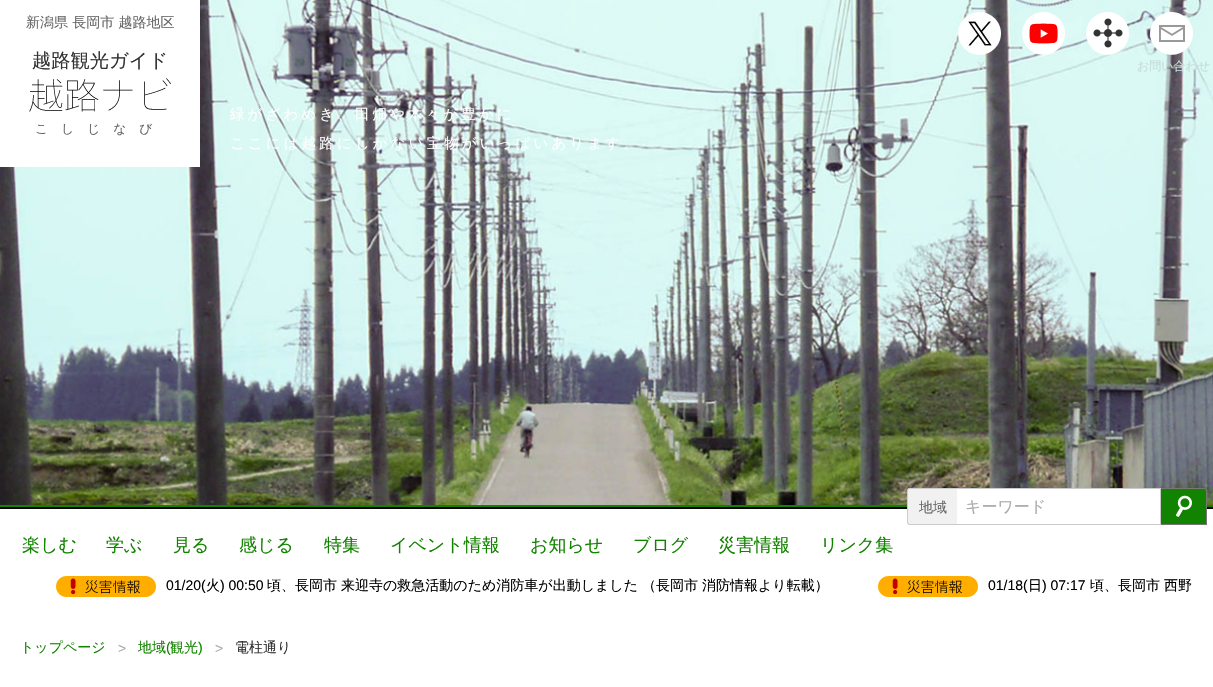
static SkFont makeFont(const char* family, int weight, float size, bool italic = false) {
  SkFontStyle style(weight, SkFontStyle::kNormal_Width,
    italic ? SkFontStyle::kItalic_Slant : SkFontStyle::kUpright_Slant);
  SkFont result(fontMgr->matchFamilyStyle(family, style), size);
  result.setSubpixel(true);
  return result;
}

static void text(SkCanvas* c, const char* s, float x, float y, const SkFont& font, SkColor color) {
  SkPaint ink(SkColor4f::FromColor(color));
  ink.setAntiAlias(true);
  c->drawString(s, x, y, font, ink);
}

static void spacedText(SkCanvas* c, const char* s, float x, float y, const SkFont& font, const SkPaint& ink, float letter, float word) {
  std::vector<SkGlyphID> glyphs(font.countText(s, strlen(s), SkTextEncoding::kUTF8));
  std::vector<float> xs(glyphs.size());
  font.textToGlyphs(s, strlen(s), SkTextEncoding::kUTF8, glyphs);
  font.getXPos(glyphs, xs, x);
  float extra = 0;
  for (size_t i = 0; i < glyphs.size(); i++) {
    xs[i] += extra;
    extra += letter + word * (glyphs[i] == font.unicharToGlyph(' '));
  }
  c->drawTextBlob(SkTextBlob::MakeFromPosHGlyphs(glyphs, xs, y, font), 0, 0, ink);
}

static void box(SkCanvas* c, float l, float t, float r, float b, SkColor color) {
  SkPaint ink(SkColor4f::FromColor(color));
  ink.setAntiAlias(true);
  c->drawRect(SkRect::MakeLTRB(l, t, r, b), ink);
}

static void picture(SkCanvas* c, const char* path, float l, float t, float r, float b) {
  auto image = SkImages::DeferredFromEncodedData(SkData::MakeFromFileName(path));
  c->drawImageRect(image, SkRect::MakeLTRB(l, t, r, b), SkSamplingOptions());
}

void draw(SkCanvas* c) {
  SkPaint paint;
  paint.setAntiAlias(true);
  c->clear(0xffffffff);
  box(c, 0, 507, 1213, 509, 0xff000000);
  box(c, 0, 505, 1213, 507, 0xff128300);
  picture(c, "img_01.png", 0, 0, 1213, 505);
  box(c, 0, 0, 200, 167, 0xffffffff);
  SkFont face1 = makeFont("WenQuanYi Zen Hei", 500, 14);
  text(c, "新潟県 長岡市 越路地区", 26, 27, face1, 0xff666666);
  SkFont face2 = makeFont("WenQuanYi Zen Hei", 500, 19.25f);
  text(c, "越路観光ガイド", 32, 67, face2, 0xff333333);
  picture(c, "img_02.png", 29, 78, 171, 112);
  SkFont face3 = makeFont("WenQuanYi Zen Hei", 500, 12.75f);
  paint.setColor(0xff666666);
  spacedText(c, "こしじなび", 35, 133, face3, paint, 13, 0);
  picture(c, "img_03.png", 1022, 12, 1065, 55);
  picture(c, "img_04.png", 1086, 12, 1129, 55);
  picture(c, "img_05.png", 958, 12, 1001, 55);
  SkFont face4 = makeFont("Liberation Sans", 400, 12);
  text(c, "X", 977, 70, face4, 0xffcbe2e1);
  picture(c, "img_06.png", 1150, 12, 1193, 55);
  SkFont face5 = makeFont("WenQuanYi Zen Hei", 500, 12);
  text(c, "お問い合わせ", 1137, 70, face5, 0xffc5ddda);
  SkFont face6 = makeFont("WenQuanYi Zen Hei", 500, 14.4f);
  paint.setColor(0xffffffff);
  spacedText(c, "緑がざわめき、田畑や木々が豊かに", 230, 119, face6, paint, 3.2f, 0);
  spacedText(c, "ここには越路にしかない宝物がいっぱいあります。", 230, 148, face6, paint, 3.2f, 0);
  paint.setColor(0xfff1f1f1);
  c->drawPath(SkPathBuilder().moveTo(910, 488).lineTo(957, 488).lineTo(957, 525).lineTo(910, 525).cubicTo(908.5f, 525, 907, 523.5f, 907, 522).lineTo(907, 491).cubicTo(907, 489.5f, 908.5f, 488, 910, 488).close().detach(), paint);
  paint.setColor(0xffcccccc);
  c->drawPath(SkPathBuilder(SkPathFillType::kEvenOdd).moveTo(910, 488).lineTo(957, 488).lineTo(957, 525).lineTo(910, 525).cubicTo(908, 525, 907, 524, 907, 522).lineTo(907, 491).cubicTo(907, 489, 908, 488, 910, 488).close().moveTo(910, 489).lineTo(957, 489).lineTo(957, 524).lineTo(910, 524).cubicTo(909, 524, 908, 523, 908, 522).lineTo(908, 491).cubicTo(908, 490, 909, 489, 910, 489).close().detach(), paint);
  text(c, "地域", 919, 512, face1, 0xff666666);
  box(c, 957, 489, 1160, 509, 0xffffffff);
  box(c, 957, 488, 1161, 489, 0xffcacaca);
  box(c, 1160, 488, 1161, 525, 0xffcacaca);
  box(c, 957, 524, 1161, 525, 0xffcacaca);
  SkFont face7 = makeFont("WenQuanYi Zen Hei", 500, 16);
  text(c, "キーワード", 965, 512, face7, 0xffaaaaaa);
  paint.setColor(0xff128300);
  c->drawPath(SkPathBuilder().moveTo(1161, 488).lineTo(1204, 488).cubicTo(1205.5f, 488, 1207, 489.5f, 1207, 491).lineTo(1207, 525).lineTo(1161, 525).close().detach(), paint);
  paint.setColor(0xff777777);
  c->drawPath(SkPathBuilder(SkPathFillType::kEvenOdd).moveTo(1161, 488).lineTo(1204, 488).cubicTo(1206, 488, 1207, 489, 1207, 491).lineTo(1207, 525).lineTo(1161, 525).close().moveTo(1161, 489).lineTo(1204, 489).cubicTo(1205, 489, 1206, 490, 1206, 491).lineTo(1206, 524).lineTo(1161, 524).close().detach(), paint);
  picture(c, "img_07.png", 1176, 495, 1192, 517);
  SkFont face8 = makeFont("WenQuanYi Zen Hei", 500, 18);
  text(c, "楽しむ", 22, 551, face8, 0xff128300);
  text(c, "学ぶ", 106, 551, face8, 0xff128300);
  text(c, "見る", 173, 551, face8, 0xff128300);
  text(c, "感じる", 239, 551, face8, 0xff128300);
  text(c, "特集", 324, 551, face8, 0xff128300);
  text(c, "イベント情報", 390, 551, face8, 0xff128300);
  text(c, "お知らせ", 530, 551, face8, 0xff128300);
  text(c, "ブログ", 633, 551, face8, 0xff128300);
  text(c, "災害情報", 718, 551, face8, 0xff128300);
  text(c, "リンク集", 820, 551, face8, 0xff128300);
  picture(c, "img_08.png", 56, 576, 156, 597);
  SkFont face9 = makeFont("Liberation Sans", 400, 14);
  text(c, "01/20(", 166, 590, face9, 0xff000000);
  text(c, "火", 206, 590, face1, 0xff000000);
  text(c, ") 00:50", 220, 590, face9, 0xff000000);
  text(c, "頃、長岡市", 267, 590, face1, 0xff000000);
  text(c, "来迎寺の救急活動のため消防車が出動しました", 341, 590, face1, 0xff000000);
  text(c, "（長岡市", 642, 590, face1, 0xff000000);
  text(c, "消防情報より転載）", 702, 590, face1, 0xff000000);
  picture(c, "img_08.png", 878, 576, 978, 597);
  text(c, "01/18(", 988, 590, face9, 0xff000000);
  text(c, "日", 1028, 590, face1, 0xff000000);
  text(c, ") 07:17", 1042, 590, face9, 0xff000000);
  text(c, "頃、長岡市", 1090, 590, face1, 0xff000000);
  text(c, "西野", 1164, 590, face1, 0xff000000);
  text(c, "トップページ", 20, 652, face1, 0xff128300);
  text(c, ">", 118, 653, face9, 0xffaaaaaa);
  text(c, "地域", 138, 652, face1, 0xff128300);
  text(c, "(", 166, 652, face9, 0xff128300);
  text(c, "観光", 170, 652, face1, 0xff128300);
  text(c, ")", 198, 652, face9, 0xff128300);
  text(c, ">", 215, 653, face9, 0xffaaaaaa);
  text(c, "電柱通り", 235, 652, face1, 0xff333333);
}
